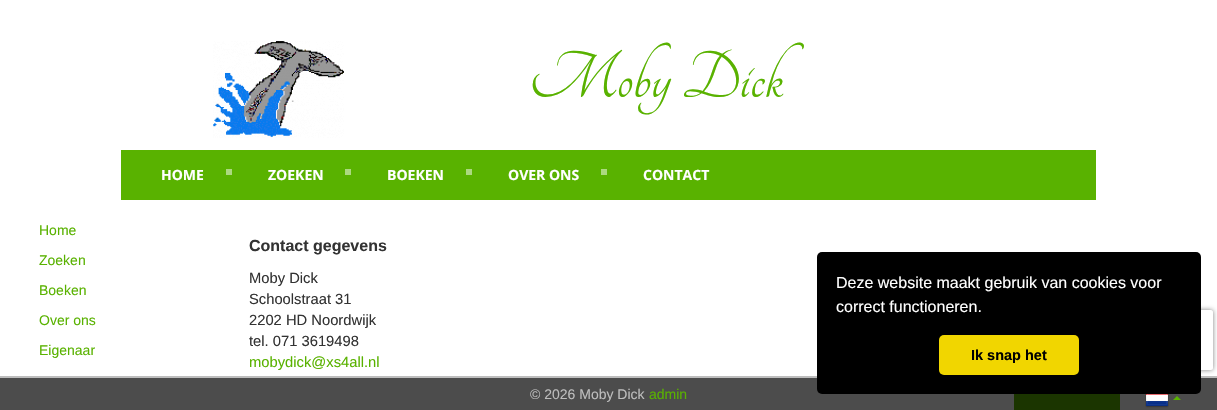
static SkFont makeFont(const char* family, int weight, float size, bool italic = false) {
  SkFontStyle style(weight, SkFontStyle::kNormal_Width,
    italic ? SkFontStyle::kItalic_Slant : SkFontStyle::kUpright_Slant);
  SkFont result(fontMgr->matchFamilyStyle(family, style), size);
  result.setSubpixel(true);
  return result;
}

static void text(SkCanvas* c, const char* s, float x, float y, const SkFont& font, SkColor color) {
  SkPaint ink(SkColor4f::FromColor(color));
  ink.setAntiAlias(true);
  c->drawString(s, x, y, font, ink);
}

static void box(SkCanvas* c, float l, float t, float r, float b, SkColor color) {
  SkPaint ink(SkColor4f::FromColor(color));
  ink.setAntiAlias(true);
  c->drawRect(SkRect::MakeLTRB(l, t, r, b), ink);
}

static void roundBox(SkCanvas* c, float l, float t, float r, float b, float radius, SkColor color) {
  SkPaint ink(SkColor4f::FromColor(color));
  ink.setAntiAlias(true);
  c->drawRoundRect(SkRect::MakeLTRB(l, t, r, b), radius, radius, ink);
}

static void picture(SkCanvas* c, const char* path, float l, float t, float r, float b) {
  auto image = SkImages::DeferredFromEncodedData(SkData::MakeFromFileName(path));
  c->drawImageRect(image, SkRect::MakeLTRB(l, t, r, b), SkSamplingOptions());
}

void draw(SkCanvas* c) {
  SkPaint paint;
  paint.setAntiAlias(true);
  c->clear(0xffffffff);
  picture(c, "img_01.png", 213, 41, 344, 138);
  SkFont face1 = makeFont("Tangerine", 400, 72);
  text(c, "Moby Dick", 529, 97, face1, 0xff59b200);
  box(c, 121, 150, 1096, 200, 0xff59b200);
  SkFont face2 = makeFont("Open Sans", 700, 14);
  text(c, "HOME", 161, 180, face2, 0xffffffff);
  box(c, 226, 169, 232, 175, 0xffacd980);
  text(c, "ZOEKEN", 268, 180, face2, 0xffffffff);
  box(c, 345, 169, 351, 175, 0xffacd980);
  text(c, "BOEKEN", 387, 180, face2, 0xffffffff);
  box(c, 466, 169, 472, 175, 0xffacd980);
  text(c, "OVER ONS", 508, 180, face2, 0xffffffff);
  box(c, 601, 169, 607, 175, 0xffacd980);
  text(c, "CONTACT", 643, 180, face2, 0xffffffff);
  SkFont face3 = makeFont("Liberation Sans", 400, 14);
  text(c, "Home", 39, 235, face3, 0xff59b200);
  text(c, "Zoeken", 39, 265, face3, 0xff59b200);
  text(c, "Boeken", 39, 295, face3, 0xff59b200);
  text(c, "Over ons", 39, 325, face3, 0xff59b200);
  text(c, "Eigenaar", 39, 355, face3, 0xff59b200);
  SkFont face4 = makeFont("Liberation Sans", 700, 16);
  text(c, "Contact gegevens", 249, 251, face4, 0xff333333);
  SkFont face5 = makeFont("Liberation Sans", 400, 14.75f);
  text(c, "Moby Dick", 249, 283, face5, 0xff333333);
  text(c, "Schoolstraat 31", 249, 304, face5, 0xff333333);
  text(c, "2202 HD Noordwijk", 249, 325, face5, 0xff333333);
  text(c, "tel. 071 3619498", 249, 346, face5, 0xff333333);
  text(c, "mobydick@xs4all.nl", 249, 367, face5, 0xff59b200);
  box(c, 1015, 394, 1119, 410, 0xff59b200);
  paint.setStyle(SkPaint::kStroke_Style);
  paint.setStrokeWidth(1);
  paint.setColor(0xff59b200);
  c->drawRect(SkRect::MakeLTRB(1014.5f, 390.5f, 1119.5f, 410.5f), paint);
  c->save();
  c->clipPath(SkPathBuilder(SkPathFillType::kEvenOdd).moveTo(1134, 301).lineTo(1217, 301).lineTo(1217, 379).lineTo(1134, 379).close().moveTo(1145, 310).lineTo(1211, 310).cubicTo(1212, 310, 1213, 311, 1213, 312).lineTo(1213, 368).cubicTo(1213, 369, 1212, 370, 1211, 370).lineTo(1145, 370).cubicTo(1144, 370, 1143, 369, 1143, 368).lineTo(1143, 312).cubicTo(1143, 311, 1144, 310, 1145, 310).close().detach(), true);
  paint.setStyle(SkPaint::kFill_Style);
  paint.setColor(0xff808080);
  paint.setMaskFilter(SkMaskFilter::MakeBlur(kNormal_SkBlurStyle, 2.5f));
  c->drawRoundRect(SkRect::MakeLTRB(1143, 310, 1213, 370), 2, 2, paint);
  paint.setMaskFilter(nullptr);
  c->restore();
  box(c, 0, 378, 1217, 410, 0xb3000000);
  box(c, 0, 376, 1217, 378, 0xffbdbdbd);
  text(c, "© 2026 Moby Dick", 530, 399, face3, 0xffbdbdbd);
  text(c, "admin", 649, 399, face3, 0xff59b200);
  picture(c, "img_02.png", 1145, 394, 1169, 408);
  paint.setColor(0xff59b200);
  c->drawPath(SkPathBuilder().moveTo(1181, 400).lineTo(1173, 400).lineTo(1177, 396).close().detach(), paint);
  roundBox(c, 817, 252, 1201, 394, 5, 0xff000000);
  SkFont face6 = makeFont("Liberation Sans", 400, 16);
  text(c, "Deze website maakt gebruik van cookies voor", 836, 288, face6, 0xffffffff);
  text(c, "correct functioneren.", 836, 312, face6, 0xffffffff);
  roundBox(c, 939, 335, 1079, 375, 5, 0xfff1d600);
  SkFont face7 = makeFont("Liberation Sans", 700, 14.5f);
  text(c, "Ik snap het", 971, 360, face7, 0xff000000);
}
